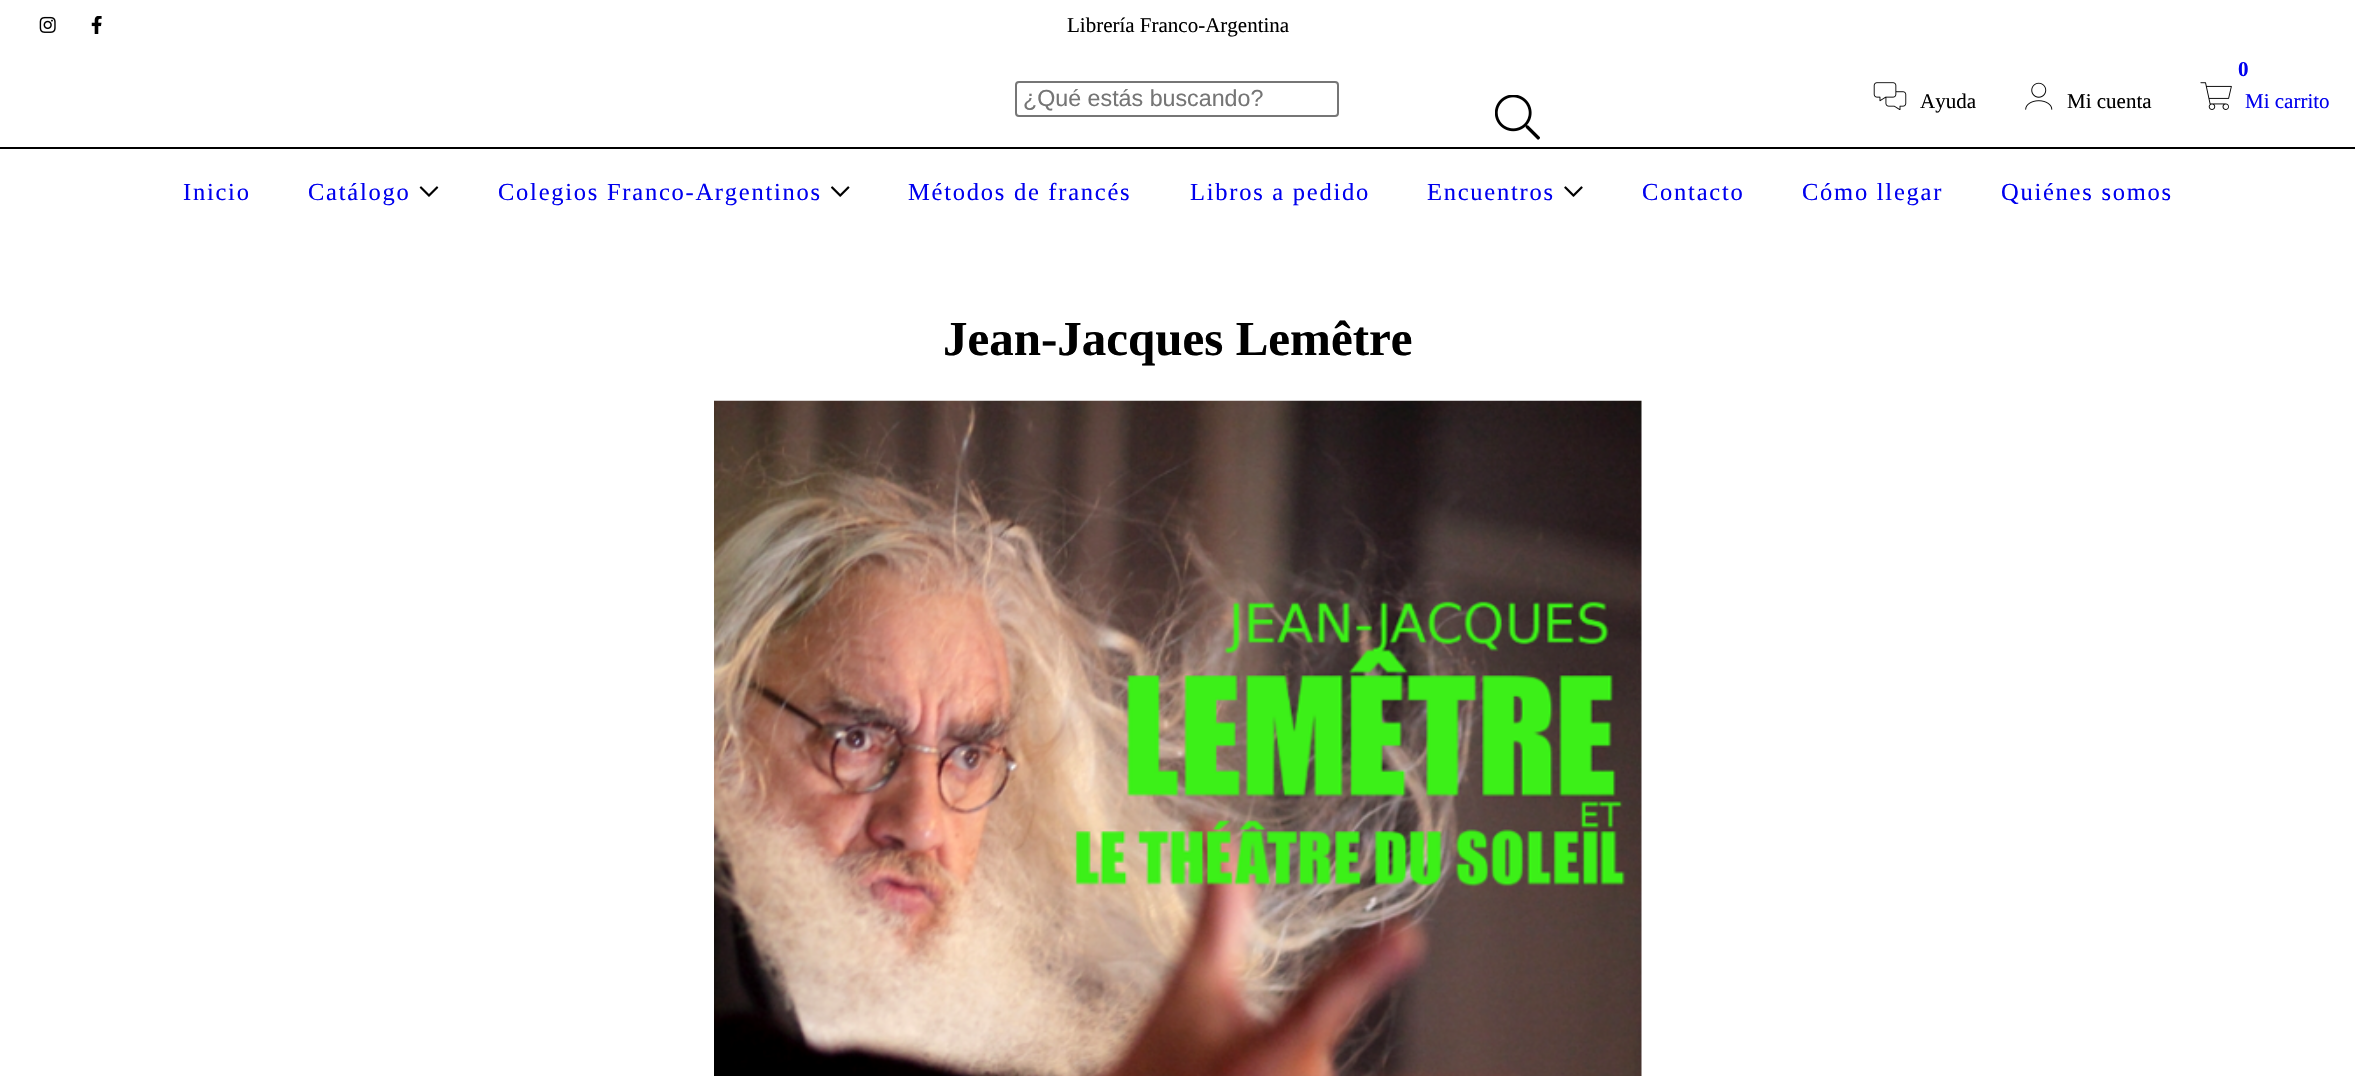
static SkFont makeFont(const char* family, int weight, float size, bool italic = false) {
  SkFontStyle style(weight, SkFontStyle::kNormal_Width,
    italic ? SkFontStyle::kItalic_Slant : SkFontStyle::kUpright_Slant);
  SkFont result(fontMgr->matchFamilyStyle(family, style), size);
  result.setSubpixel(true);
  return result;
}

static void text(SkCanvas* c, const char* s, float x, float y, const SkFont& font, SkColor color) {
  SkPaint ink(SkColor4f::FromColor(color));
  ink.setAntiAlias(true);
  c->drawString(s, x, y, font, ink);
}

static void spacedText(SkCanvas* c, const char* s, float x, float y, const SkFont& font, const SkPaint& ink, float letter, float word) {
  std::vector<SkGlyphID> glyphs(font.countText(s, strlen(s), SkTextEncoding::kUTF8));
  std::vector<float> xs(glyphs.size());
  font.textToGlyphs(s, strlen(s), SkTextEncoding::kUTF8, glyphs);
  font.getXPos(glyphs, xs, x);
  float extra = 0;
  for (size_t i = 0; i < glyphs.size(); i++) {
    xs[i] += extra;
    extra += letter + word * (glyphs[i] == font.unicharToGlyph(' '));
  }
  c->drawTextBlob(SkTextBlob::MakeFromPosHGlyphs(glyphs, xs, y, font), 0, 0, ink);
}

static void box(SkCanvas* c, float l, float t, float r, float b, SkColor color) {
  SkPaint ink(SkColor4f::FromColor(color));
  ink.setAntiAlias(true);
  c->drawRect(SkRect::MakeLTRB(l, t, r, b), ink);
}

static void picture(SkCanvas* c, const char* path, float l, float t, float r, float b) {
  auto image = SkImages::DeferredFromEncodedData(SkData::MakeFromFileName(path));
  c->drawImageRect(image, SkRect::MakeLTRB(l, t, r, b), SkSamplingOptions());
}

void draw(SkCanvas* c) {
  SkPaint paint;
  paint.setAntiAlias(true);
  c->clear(0xffffffff);
  picture(c, "img_01.png", 39, 16, 56, 33);
  picture(c, "img_02.png", 91, 16, 102, 34);
  SkFont face1 = makeFont("Liberation Serif", 400, 21);
  text(c, "Librería Franco-Argentina", 1067, 32, face1, 0xff000000);
  paint.setStyle(SkPaint::kStroke_Style);
  paint.setStrokeWidth(2);
  paint.setColor(0xff767676);
  c->drawRoundRect(SkRect::MakeLTRB(1016, 82, 1338, 116), 3, 3, paint);
  SkFont face2 = makeFont("Liberation Sans", 400, 23.25f);
  text(c, "¿Qué estás buscando?", 1023, 106, face2, 0xff757575);
  picture(c, "img_03.png", 1495, 95, 1540, 140);
  picture(c, "img_04.png", 1873, 82, 1907, 110);
  text(c, "Ayuda", 1920, 108, face1, 0xff000000);
  picture(c, "img_05.png", 2025, 82, 2053, 110);
  text(c, "Mi cuenta", 2067, 108, face1, 0xff000000);
  SkFont face3 = makeFont("Liberation Serif", 700, 21);
  text(c, "0", 2238, 76, face3, 0xff0000ee);
  picture(c, "img_06.png", 2200, 82, 2232, 110);
  text(c, "Mi carrito", 2245, 108, face1, 0xff0000ee);
  box(c, 0, 147, 2355, 149, 0xff000000);
  SkFont face4 = makeFont("Liberation Serif", 400, 24.5f);
  paint.setStyle(SkPaint::kFill_Style);
  paint.setColor(0xff0000ee);
  spacedText(c, "Inicio", 183, 200, face4, paint, 1.75f, 0);
  spacedText(c, "Catálogo", 308, 200, face4, paint, 1.75f, 0);
  picture(c, "img_07.png", 419, 186, 439, 197);
  spacedText(c, "Colegios Franco-Argentinos", 498, 200, face4, paint, 1.75f, 0);
  picture(c, "img_08.png", 831, 186, 850, 197);
  spacedText(c, "Métodos de francés", 908, 200, face4, paint, 1.75f, 0);
  spacedText(c, "Libros a pedido", 1190, 200, face4, paint, 1.75f, 0);
  spacedText(c, "Encuentros", 1427, 200, face4, paint, 1.75f, 0);
  picture(c, "img_09.png", 1564, 186, 1583, 197);
  spacedText(c, "Contacto", 1642, 200, face4, paint, 1.75f, 0);
  spacedText(c, "Cómo llegar", 1802, 200, face4, paint, 1.75f, 0);
  spacedText(c, "Quiénes somos", 2001, 200, face4, paint, 1.75f, 0);
  SkFont face5 = makeFont("Liberation Serif", 700, 49);
  text(c, "Jean-Jacques Lemêtre", 943, 355, face5, 0xff000000);
  picture(c, "img_10.png", 714, 400, 1642, 1076);
}
